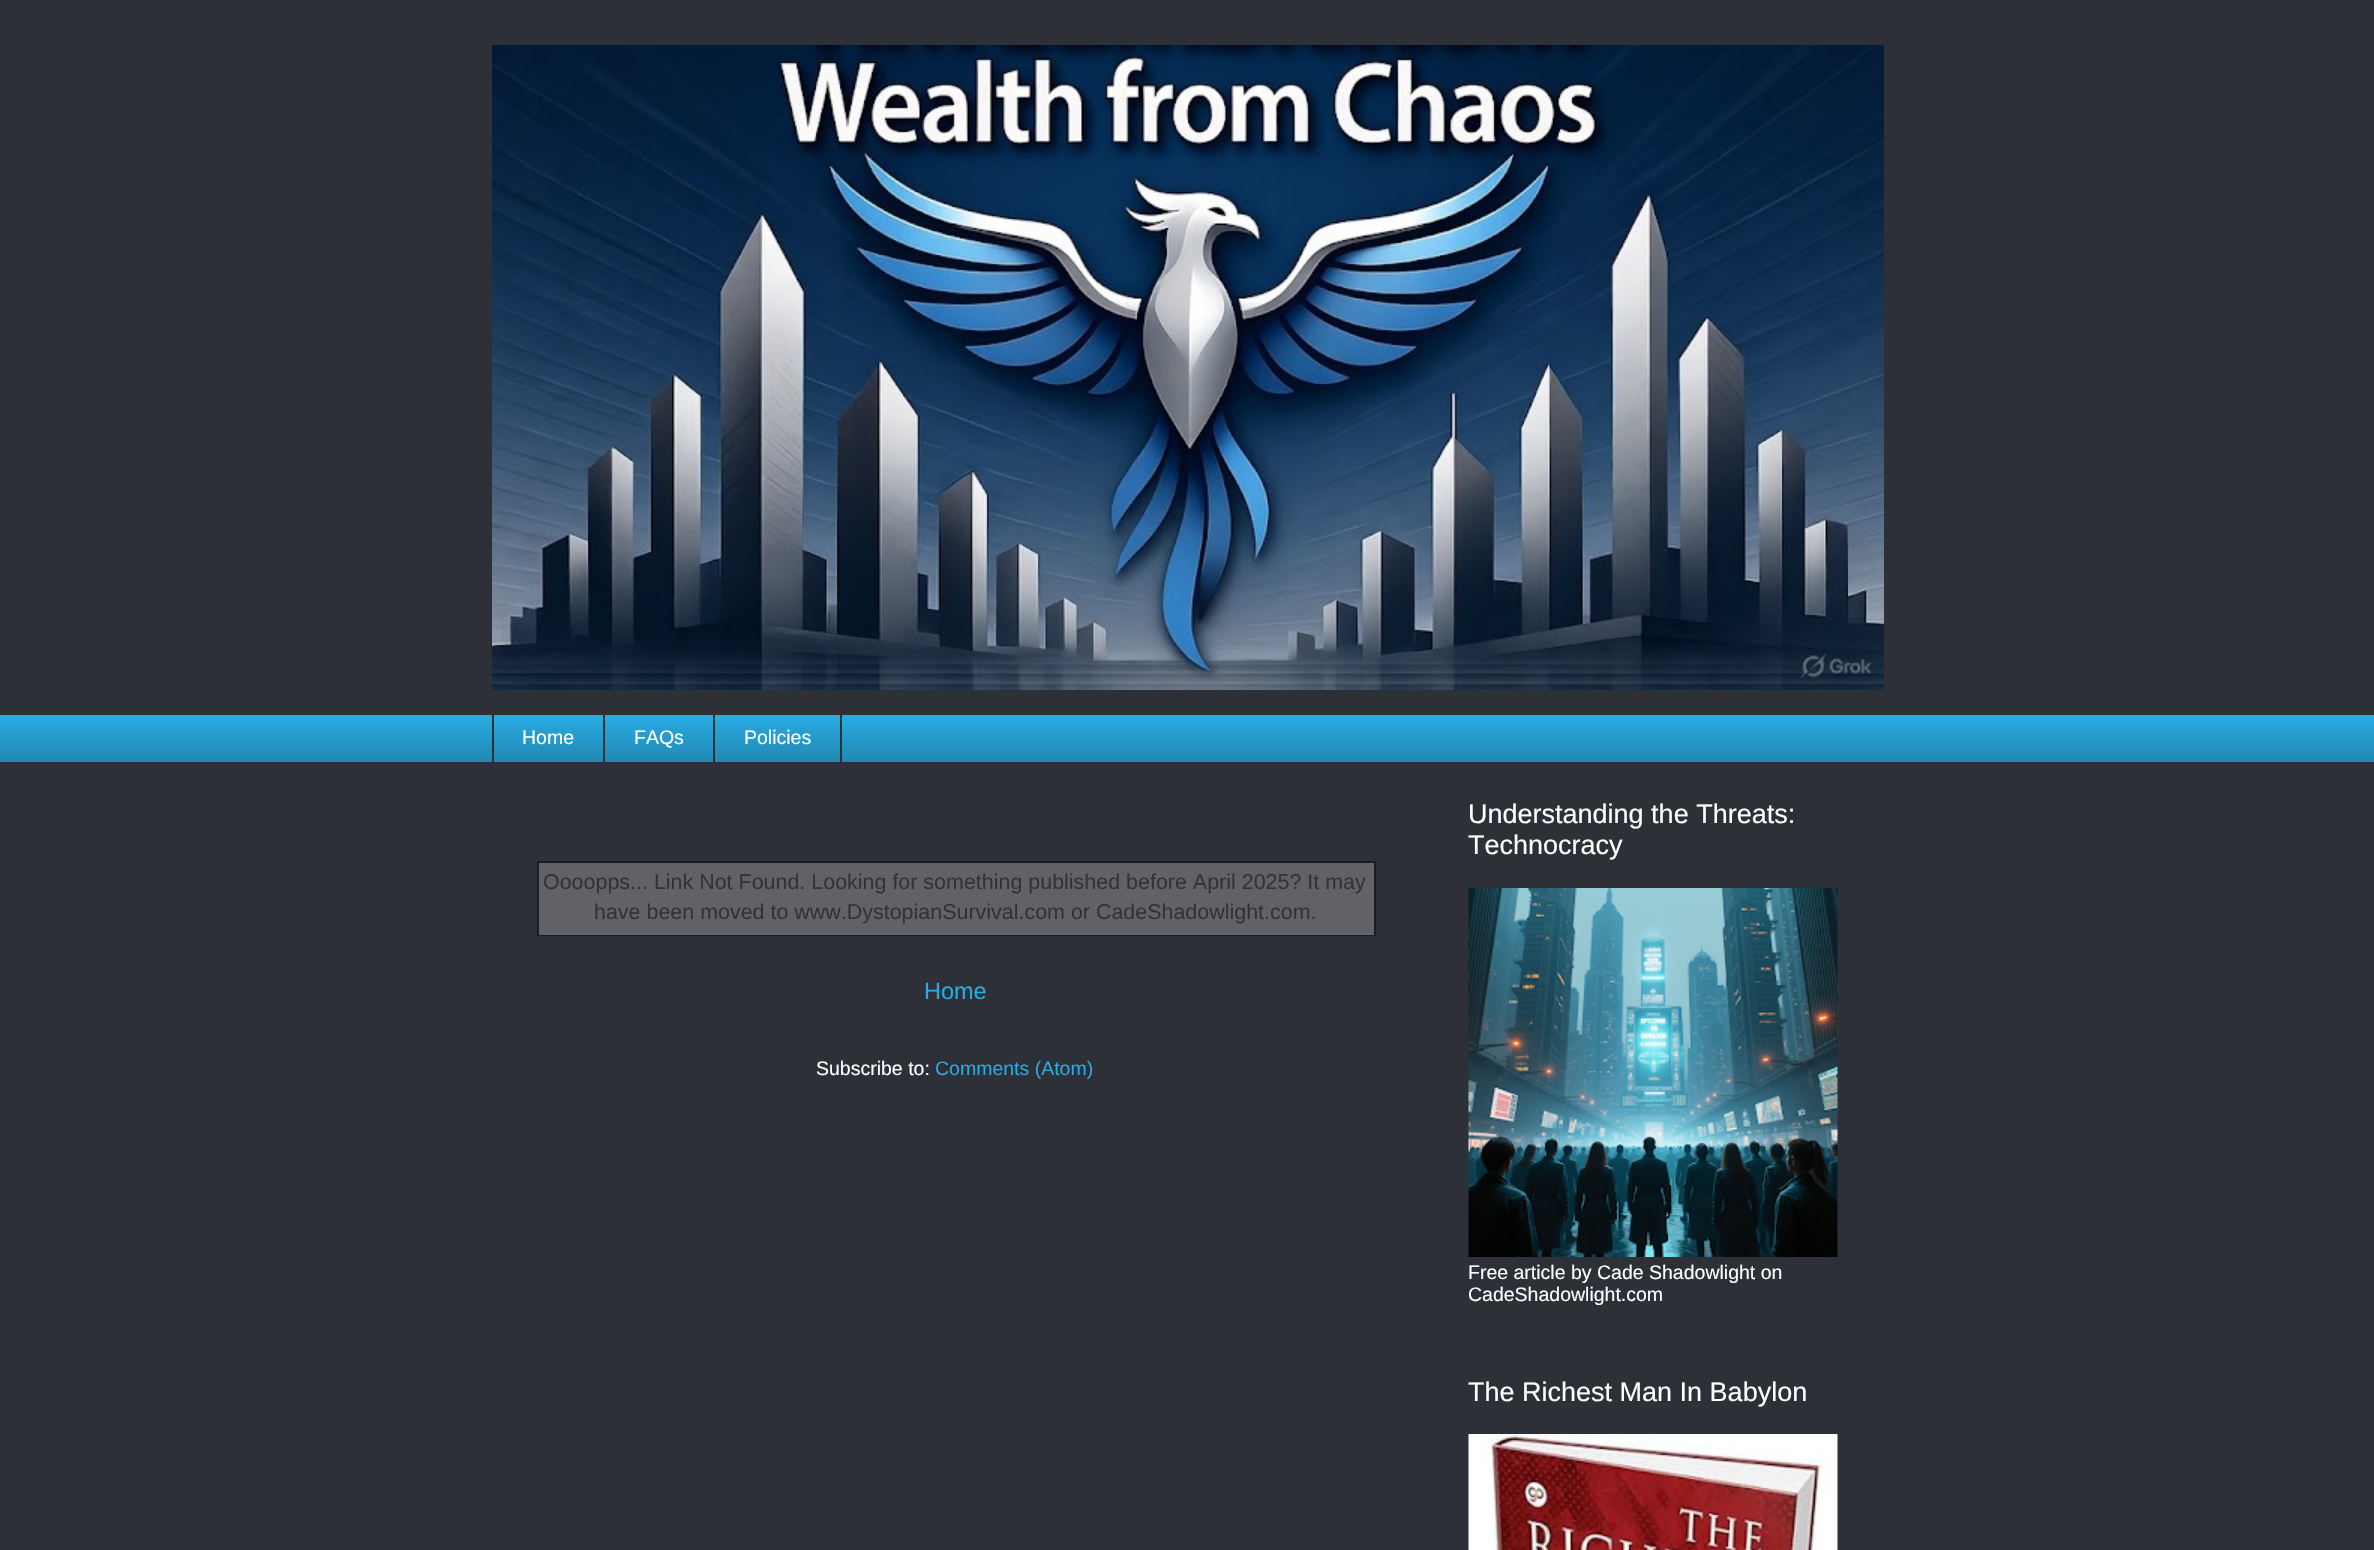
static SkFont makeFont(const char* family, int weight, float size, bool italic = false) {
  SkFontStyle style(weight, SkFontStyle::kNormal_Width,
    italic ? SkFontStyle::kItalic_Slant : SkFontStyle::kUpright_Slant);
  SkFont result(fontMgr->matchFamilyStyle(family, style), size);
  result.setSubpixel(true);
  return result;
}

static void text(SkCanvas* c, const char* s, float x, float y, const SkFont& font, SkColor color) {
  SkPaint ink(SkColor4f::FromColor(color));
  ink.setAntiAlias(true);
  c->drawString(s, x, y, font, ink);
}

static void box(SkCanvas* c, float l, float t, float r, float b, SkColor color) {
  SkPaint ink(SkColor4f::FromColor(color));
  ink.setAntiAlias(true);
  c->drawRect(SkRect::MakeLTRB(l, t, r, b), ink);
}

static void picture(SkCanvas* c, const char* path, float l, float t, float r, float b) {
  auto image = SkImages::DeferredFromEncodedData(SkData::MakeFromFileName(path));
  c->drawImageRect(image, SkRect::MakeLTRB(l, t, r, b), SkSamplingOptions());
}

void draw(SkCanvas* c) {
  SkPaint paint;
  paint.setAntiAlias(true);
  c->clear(0xff2d3037);
  picture(c, "img_01.png", 492, 45, 1884, 690);
  box(c, 0, 715, 2374, 762, 0xff29aae1);
  picture(c, "img_02.png", 0, 722, 2374, 762);
  box(c, 492, 713, 494, 764, 0xff2d3037);
  SkFont face1 = makeFont("Liberation Sans", 400, 19.5f);
  text(c, "Home", 522, 744, face1, 0xffffffff);
  box(c, 603, 713, 605, 764, 0xff2d3037);
  text(c, "FAQs", 634, 744, face1, 0xffffffff);
  paint.setStyle(SkPaint::kStroke_Style);
  paint.setStrokeWidth(2);
  paint.setColor(0xff2d3037);
  c->drawRect(SkRect::MakeLTRB(714, 714, 841, 763), paint);
  text(c, "Policies", 744, 744, face1, 0xffffffff);
  paint.setColor(0xff1b1d21);
  c->drawRect(SkRect::MakeLTRB(538, 862, 1375, 935), paint);
  box(c, 539, 863, 1374, 935, 0xff606267);
  SkFont face2 = makeFont("Liberation Sans", 400, 21.45f);
  text(c, "Oooopps... Link Not Found. Looking for something published before April 2025? It may", 543, 889, face2, 0xff333333);
  text(c, "have been moved to www.DystopianSurvival.com or CadeShadowlight.com.", 594, 919, face2, 0xff333333);
  SkFont face3 = makeFont("Liberation Sans", 400, 23.5f);
  text(c, "Home", 924, 999, face3, 0xff29aae1);
  text(c, "Subscribe to:", 816, 1075, face1, 0xffffffff);
  text(c, "Comments (Atom)", 935, 1075, face1, 0xff29aae1);
  SkFont face4 = makeFont("Liberation Sans", 400, 27);
  text(c, "Understanding the Threats:", 1468, 823, face4, 0xffffffff);
  text(c, "Technocracy", 1468, 854, face4, 0xffffffff);
  picture(c, "img_03.png", 1468, 888, 1838, 1257);
  text(c, "Free article by Cade Shadowlight on", 1468, 1279, face1, 0xffffffff);
  text(c, "CadeShadowlight.com", 1468, 1301, face1, 0xffffffff);
  text(c, "The Richest Man In Babylon", 1468, 1401, face4, 0xffffffff);
  picture(c, "img_04.png", 1468, 1434, 1838, 1550);
}
